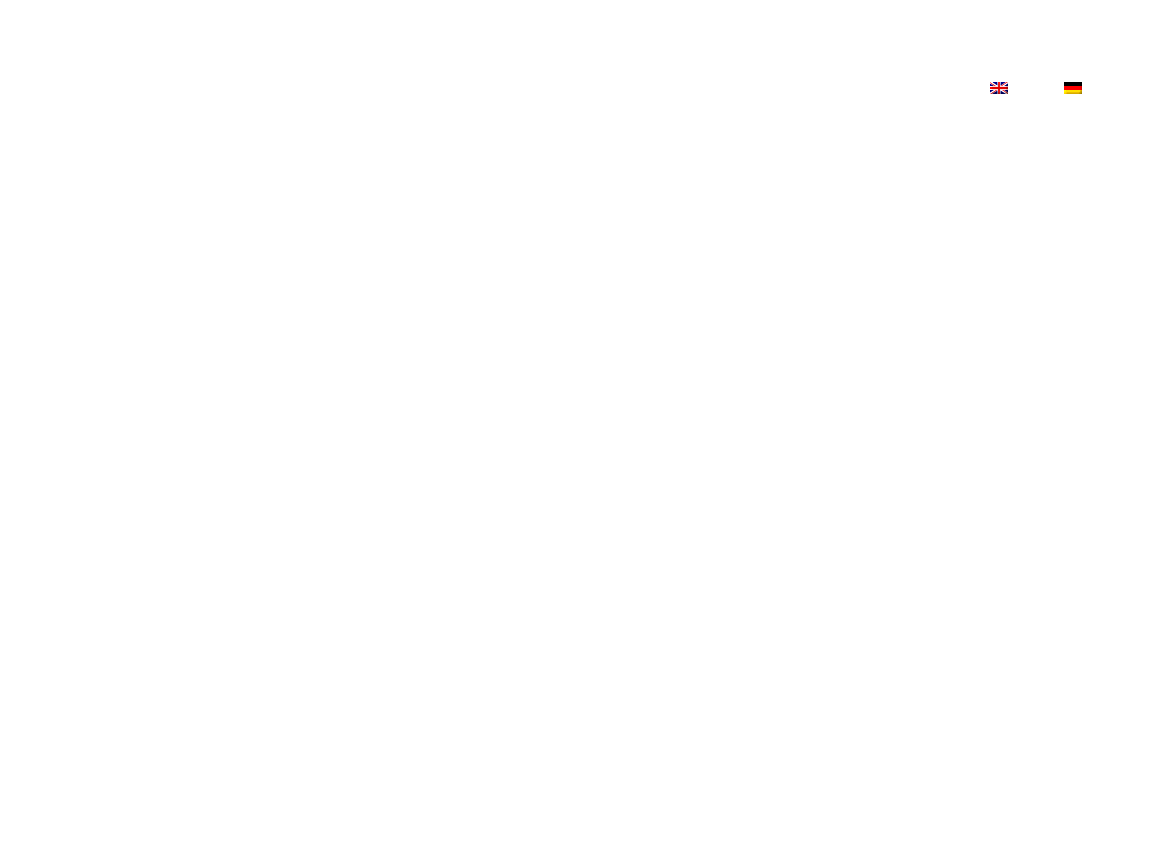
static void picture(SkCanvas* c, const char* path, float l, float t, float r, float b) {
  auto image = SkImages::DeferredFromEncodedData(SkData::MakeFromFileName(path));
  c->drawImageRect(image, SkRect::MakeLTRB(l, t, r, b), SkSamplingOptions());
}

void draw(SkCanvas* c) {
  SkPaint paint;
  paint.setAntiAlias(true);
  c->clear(0xffffffff);
  picture(c, "img_01.png", 990, 82, 1008, 94);
  picture(c, "img_02.png", 1064, 82, 1082, 94);
}
